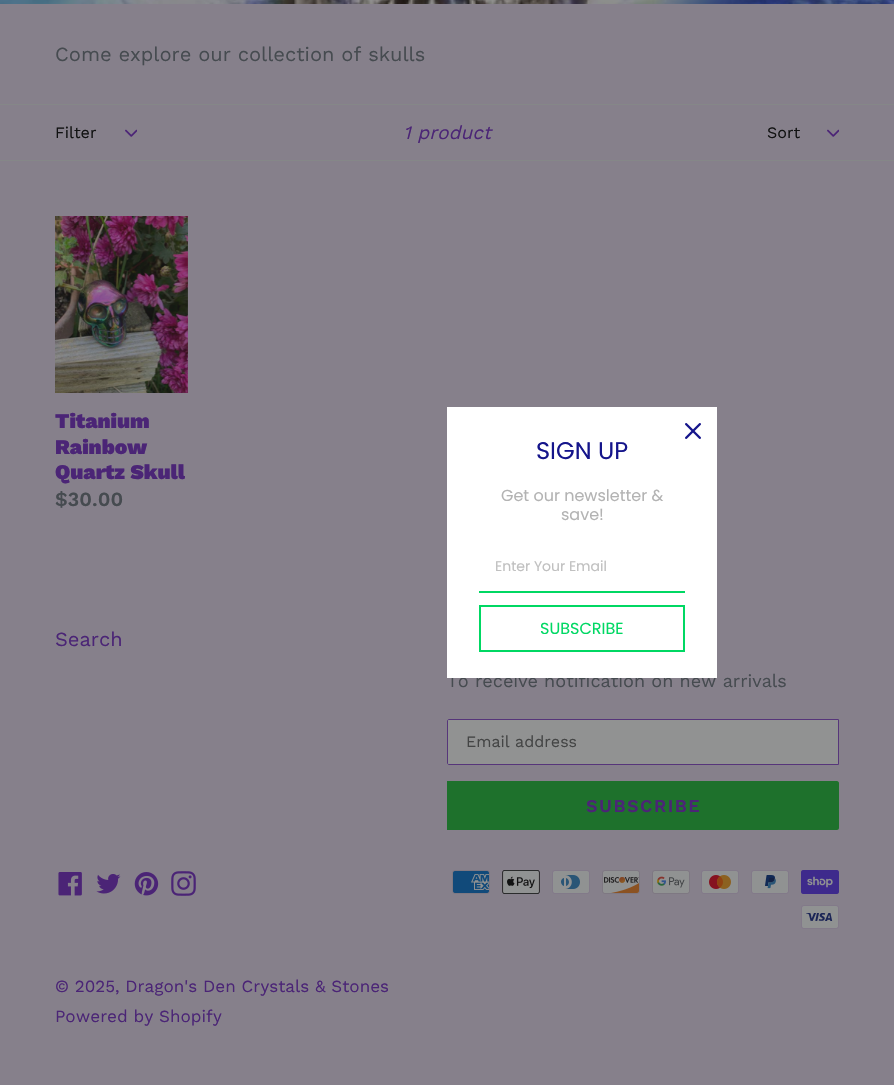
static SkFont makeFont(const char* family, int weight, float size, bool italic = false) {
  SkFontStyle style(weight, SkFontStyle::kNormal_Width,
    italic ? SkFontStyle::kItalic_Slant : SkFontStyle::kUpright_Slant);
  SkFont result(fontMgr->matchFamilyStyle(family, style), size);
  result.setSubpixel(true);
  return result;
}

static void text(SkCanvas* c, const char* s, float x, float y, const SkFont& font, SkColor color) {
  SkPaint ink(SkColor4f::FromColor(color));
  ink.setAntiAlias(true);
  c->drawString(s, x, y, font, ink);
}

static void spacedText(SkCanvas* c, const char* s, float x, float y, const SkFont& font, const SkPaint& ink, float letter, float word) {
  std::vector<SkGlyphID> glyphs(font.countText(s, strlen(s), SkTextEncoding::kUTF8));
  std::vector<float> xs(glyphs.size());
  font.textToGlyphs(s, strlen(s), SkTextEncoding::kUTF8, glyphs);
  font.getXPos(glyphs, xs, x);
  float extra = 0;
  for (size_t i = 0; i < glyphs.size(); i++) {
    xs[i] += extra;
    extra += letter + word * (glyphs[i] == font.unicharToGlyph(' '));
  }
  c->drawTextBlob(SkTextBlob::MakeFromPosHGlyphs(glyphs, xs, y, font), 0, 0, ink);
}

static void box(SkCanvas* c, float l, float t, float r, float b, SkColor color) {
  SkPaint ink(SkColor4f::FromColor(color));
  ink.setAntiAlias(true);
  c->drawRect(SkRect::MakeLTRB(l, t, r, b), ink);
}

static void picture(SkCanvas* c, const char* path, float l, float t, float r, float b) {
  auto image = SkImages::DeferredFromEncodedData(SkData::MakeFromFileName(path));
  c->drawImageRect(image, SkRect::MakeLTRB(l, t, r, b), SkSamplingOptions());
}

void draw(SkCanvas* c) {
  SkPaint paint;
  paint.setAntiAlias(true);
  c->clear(0xff86808b);
  picture(c, "img_01.png", 0, 0, 894, 4);
  SkFont face1 = makeFont("Work Sans", 400, 20);
  text(c, "Come explore our collection of skulls", 55, 61, face1, 0xff464b50);
  box(c, 0, 104, 894, 105, 0xff858788);
  box(c, 0, 160, 894, 161, 0xff858788);
  SkFont face2 = makeFont("Work Sans", 400, 16);
  text(c, "Filter", 55, 138, face2, 0xff111212);
  picture(c, "img_02.png", 125, 129, 137, 137);
  SkFont face3 = makeFont("Work Sans", 400, 19, true);
  text(c, "1 product", 403, 139, face3, 0xff4b2576);
  text(c, "Sort", 767, 138, face2, 0xff111212);
  picture(c, "img_02.png", 827, 129, 839, 137);
  picture(c, "img_03.png", 55, 216, 188, 393);
  SkFont face4 = makeFont("Work Sans", 900, 21);
  text(c, "Titanium", 55, 428, face4, 0xff4b2576);
  text(c, "Rainbow", 55, 454, face4, 0xff4b2576);
  text(c, "Quartz Skull", 55, 479, face4, 0xff4b2576);
  SkFont face5 = makeFont("Work Sans", 600, 20);
  text(c, "$30.00", 55, 506, face5, 0xff464b50);
  text(c, "Search", 55, 646, face1, 0xff4b2576);
  SkFont face6 = makeFont("Work Sans", 400, 18);
  text(c, "To receive notification on new arrivals", 447, 687, face6, 0xff464b50);
  paint.setColor(0xff919292);
  c->drawPath(SkPathBuilder().moveTo(449, 719).lineTo(839, 719).lineTo(839, 765).lineTo(449, 765).cubicTo(448, 765, 447, 764, 447, 763).lineTo(447, 721).cubicTo(447, 720, 448, 719, 449, 719).close().detach(), paint);
  paint.setStyle(SkPaint::kStroke_Style);
  paint.setStrokeWidth(1);
  paint.setColor(0xd94b2576);
  c->drawPath(SkPathBuilder().moveTo(449, 719.5f).lineTo(838.5f, 719.5f).lineTo(838.5f, 764.5f).lineTo(449, 764.5f).cubicTo(448, 764.5f, 447.5f, 764, 447.5f, 763).lineTo(447.5f, 721).cubicTo(447.5f, 720, 448, 719.5f, 449, 719.5f).close().detach(), paint);
  text(c, "Email address", 466, 747, face2, 0xff444545);
  paint.setStyle(SkPaint::kFill_Style);
  paint.setColor(0xff1e712c);
  c->drawPath(SkPathBuilder().moveTo(447, 781).lineTo(837, 781).cubicTo(838, 781, 839, 782, 839, 783).lineTo(839, 828).cubicTo(839, 829, 838, 830, 837, 830).lineTo(447, 830).close().detach(), paint);
  SkFont face7 = makeFont("Work Sans", 600, 18);
  paint.setColor(0xff4b2576);
  spacedText(c, "SUBSCRIBE", 586, 812, face7, paint, 1.5f, 0);
  picture(c, "img_04.png", 58, 872, 82, 896);
  picture(c, "img_05.png", 96, 874, 121, 894);
  picture(c, "img_06.png", 134, 872, 159, 896);
  picture(c, "img_07.png", 171, 871, 196, 896);
  picture(c, "img_08.png", 452, 870, 490, 894);
  picture(c, "img_09.png", 502, 870, 540, 894);
  picture(c, "img_10.png", 552, 870, 590, 894);
  picture(c, "img_11.png", 602, 870, 640, 894);
  picture(c, "img_12.png", 652, 870, 690, 894);
  picture(c, "img_13.png", 701, 870, 739, 894);
  picture(c, "img_14.png", 751, 870, 789, 894);
  picture(c, "img_15.png", 801, 870, 839, 894);
  picture(c, "img_16.png", 801, 905, 839, 929);
  SkFont face8 = makeFont("Work Sans", 400, 17);
  text(c, "© 2025, Dragon's Den Crystals & Stones", 55, 992, face8, 0xff4b2576);
  text(c, "Powered by Shopify", 55, 1022, face8, 0xff4b2576);
  box(c, 447, 407, 717, 678, 0xffffffff);
  picture(c, "img_17.png", 685, 423, 701, 439);
  SkFont face9 = makeFont("Poppins", 400, 24);
  text(c, "SIGN UP", 536, 459, face9, 0xff15158b);
  SkFont face10 = makeFont("Poppins", 400, 16);
  text(c, "Get our newsletter &", 501, 501, face10, 0xffb3b3b3);
  text(c, "save!", 561, 520, face10, 0xffb3b3b3);
  box(c, 479, 591, 685, 593, 0xff00d863);
  SkFont face11 = makeFont("Poppins", 400, 14);
  text(c, "Enter Your Email", 495, 571, face11, 0xffc0c0c0);
  paint.setStyle(SkPaint::kStroke_Style);
  paint.setStrokeWidth(2);
  paint.setColor(0xff00d863);
  c->drawRect(SkRect::MakeLTRB(480, 606, 684, 651), paint);
  text(c, "SUBSCRIBE", 540, 634, face10, 0xff00d863);
}
